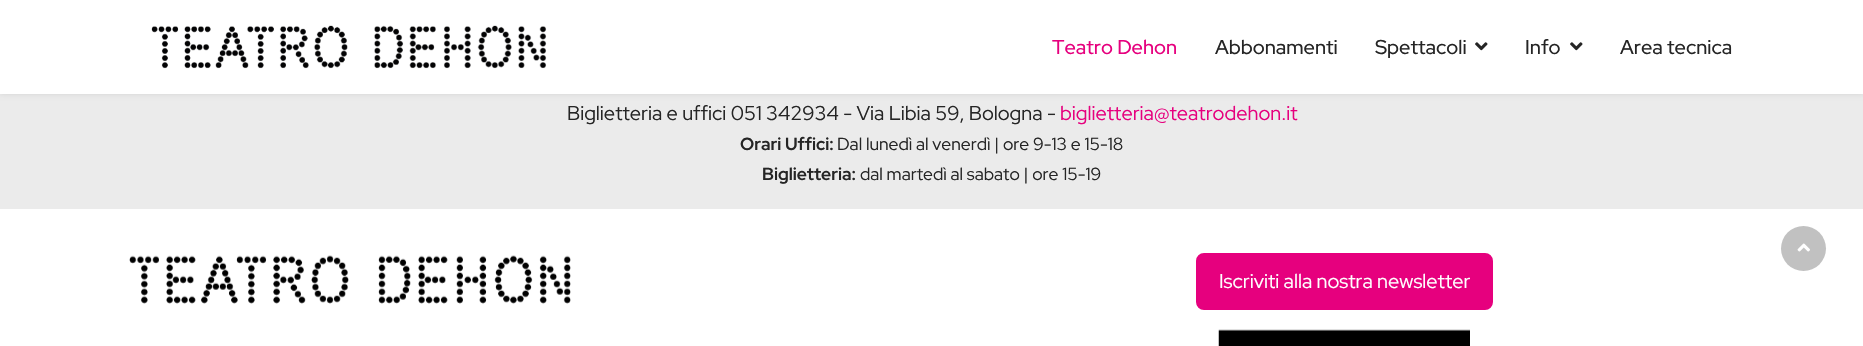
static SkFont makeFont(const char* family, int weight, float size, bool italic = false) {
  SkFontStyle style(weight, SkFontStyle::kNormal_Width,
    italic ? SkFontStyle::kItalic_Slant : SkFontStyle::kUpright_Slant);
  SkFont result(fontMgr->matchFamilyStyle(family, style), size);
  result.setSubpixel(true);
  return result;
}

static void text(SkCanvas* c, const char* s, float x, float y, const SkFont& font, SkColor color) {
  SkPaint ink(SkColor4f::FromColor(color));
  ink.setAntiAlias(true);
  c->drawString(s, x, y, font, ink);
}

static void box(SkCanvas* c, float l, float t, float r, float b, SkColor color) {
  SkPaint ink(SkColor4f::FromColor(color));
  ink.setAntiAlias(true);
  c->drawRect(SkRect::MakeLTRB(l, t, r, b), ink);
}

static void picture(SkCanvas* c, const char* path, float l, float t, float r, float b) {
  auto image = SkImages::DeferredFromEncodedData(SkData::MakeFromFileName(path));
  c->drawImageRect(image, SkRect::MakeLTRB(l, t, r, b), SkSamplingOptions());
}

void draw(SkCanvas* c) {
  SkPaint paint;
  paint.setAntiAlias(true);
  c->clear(0xffffffff);
  box(c, 0, 94, 1863, 209, 0xffebebeb);
  paint.setColor(0x1a000000);
  paint.setMaskFilter(SkMaskFilter::MakeBlur(kNormal_SkBlurStyle, 2.5f));
  c->drawRect(SkRect::MakeLTRB(0, 0, 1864, 94), paint);
  paint.setMaskFilter(nullptr);
  box(c, 0, 0, 1863, 94, 0xffffffff);
  picture(c, "img_01.png", 151, 25, 547, 69);
  SkFont face1 = makeFont("Red Hat Display", 500, 20);
  text(c, "Teatro Dehon", 1052, 54, face1, 0xffe6007e);
  text(c, "Abbonamenti", 1215, 54, face1, 0xff252525);
  text(c, "Spettacoli", 1375, 54, face1, 0xff252525);
  picture(c, "img_02.png", 1475, 42, 1488, 51);
  text(c, "Info", 1525, 54, face1, 0xff252525);
  picture(c, "img_02.png", 1570, 42, 1583, 51);
  text(c, "Area tecnica", 1620, 54, face1, 0xff252525);
  SkFont face2 = makeFont("Red Hat Display", 400, 20);
  text(c, "Biglietteria e uffici 051 342934 - Via Libia 59, Bologna -", 567, 120, face2, 0xff252525);
  text(c, "biglietteria@teatrodehon.it", 1060, 120, face2, 0xffe6007e);
  SkFont face3 = makeFont("Red Hat Display", 700, 17.5f);
  text(c, "Orari Uffici:", 740, 150, face3, 0xff252525);
  SkFont face4 = makeFont("Red Hat Display", 400, 17.5f);
  text(c, "Dal lunedì al venerdì | ore 9-13 e 15-18", 837, 150, face4, 0xff252525);
  text(c, "Biglietteria:", 762, 180, face3, 0xff252525);
  text(c, "dal martedì al sabato | ore 15-19", 860, 180, face4, 0xff252525);
  picture(c, "img_03.png", 129, 255, 571, 304);
  paint.setColor(0xffe6007e);
  c->drawRoundRect(SkRect::MakeLTRB(1197.5f, 254.5f, 1491.5f, 308.5f), 6.5f, 6.5f, paint);
  paint.setStyle(SkPaint::kStroke_Style);
  paint.setStrokeWidth(3);
  c->drawRoundRect(SkRect::MakeLTRB(1197.5f, 254.5f, 1491.5f, 308.5f), 6.5f, 6.5f, paint);
  text(c, "Iscriviti alla nostra newsletter", 1219, 288, face2, 0xffffffff);
  picture(c, "img_04.png", 1218, 329, 1470, 346);
  paint.setStyle(SkPaint::kFill_Style);
  paint.setColor(0xffc1c1c1);
  c->drawCircle(1803.5f, 248.5f, 22.5f, paint);
  picture(c, "img_05.png", 1797, 243, 1810, 252);
}
